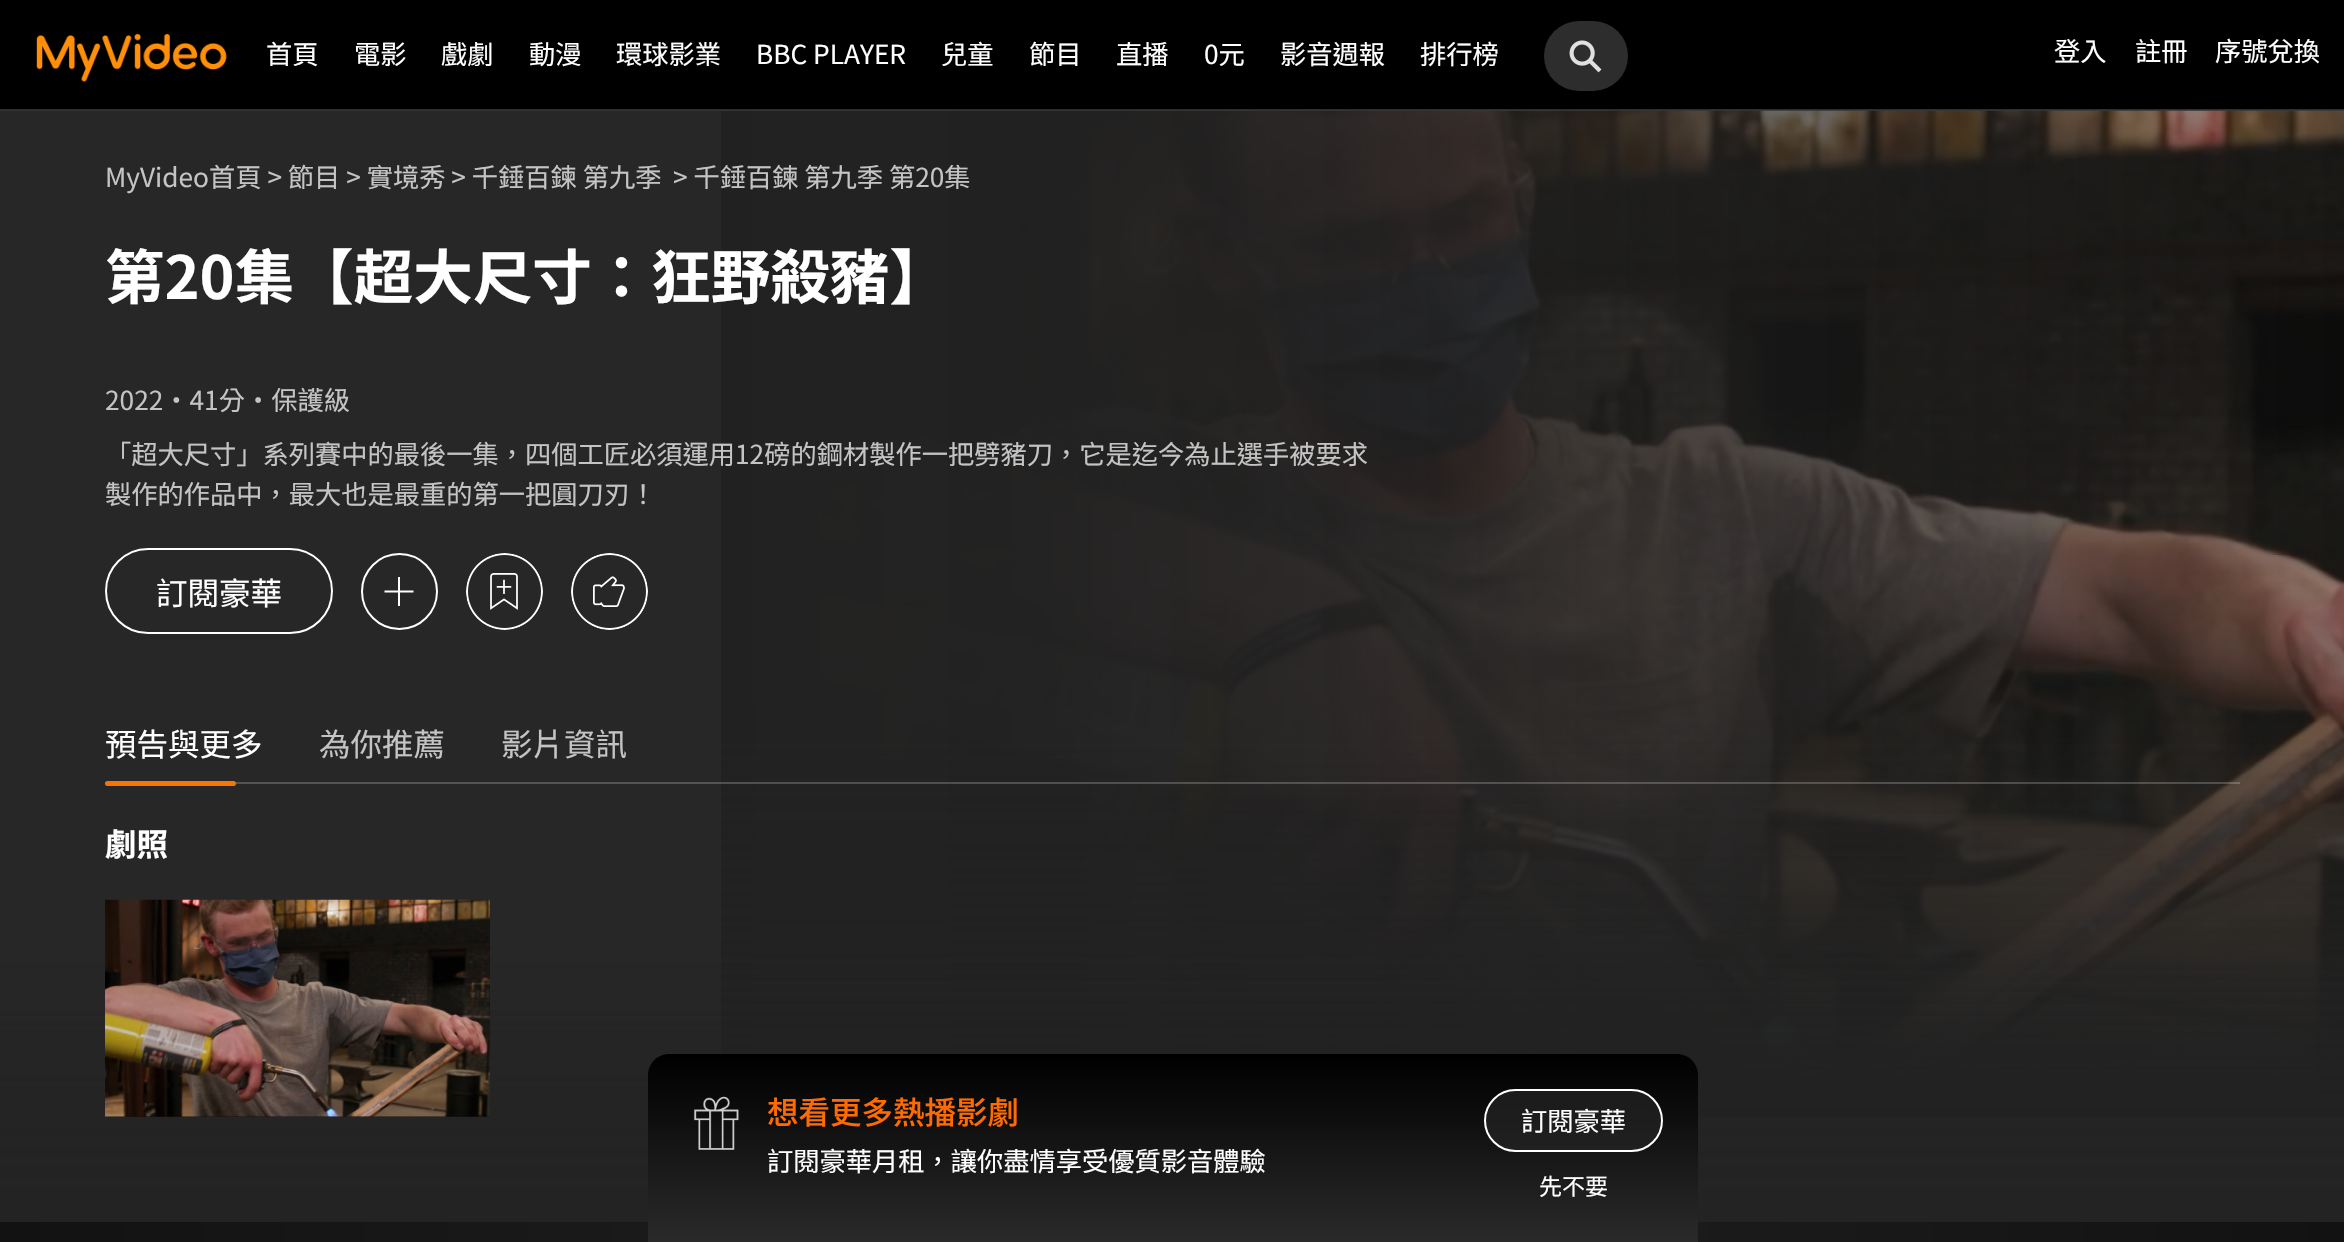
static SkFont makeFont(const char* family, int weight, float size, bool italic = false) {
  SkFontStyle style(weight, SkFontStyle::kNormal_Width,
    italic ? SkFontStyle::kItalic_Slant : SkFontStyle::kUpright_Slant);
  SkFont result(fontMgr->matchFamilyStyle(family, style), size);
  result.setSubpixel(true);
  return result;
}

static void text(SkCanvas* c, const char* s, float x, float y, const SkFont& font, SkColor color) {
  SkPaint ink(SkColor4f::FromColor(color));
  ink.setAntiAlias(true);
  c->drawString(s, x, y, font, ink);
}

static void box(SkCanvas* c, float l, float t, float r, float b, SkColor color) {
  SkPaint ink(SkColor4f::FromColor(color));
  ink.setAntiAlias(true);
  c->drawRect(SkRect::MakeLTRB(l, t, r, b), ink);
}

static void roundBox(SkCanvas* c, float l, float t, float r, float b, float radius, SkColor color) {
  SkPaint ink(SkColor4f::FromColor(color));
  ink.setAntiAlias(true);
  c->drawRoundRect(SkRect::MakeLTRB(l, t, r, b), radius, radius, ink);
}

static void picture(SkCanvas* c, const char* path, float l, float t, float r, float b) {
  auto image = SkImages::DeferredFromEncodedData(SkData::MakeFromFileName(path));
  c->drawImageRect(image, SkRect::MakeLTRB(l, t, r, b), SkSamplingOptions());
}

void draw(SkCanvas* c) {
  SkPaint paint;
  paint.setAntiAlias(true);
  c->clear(0xff272727);
  box(c, 0, 0, 2344, 110, 0xff000000);
  picture(c, "img_03.png", 816, 110, 2344, 1115);
  {
    const SkColor colors[] = {0xb3212121, 0x00212121};
    const float stops[] = {0.06f, 0.43f};
    const SkPoint ends[] = {{1621, 1117}, {1620, -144}};
    paint.setShader(SkGradientShader::MakeLinear(ends, colors, stops, 2, SkTileMode::kClamp));
    paint.setAlpha(255);
  }
  c->drawRect(SkRect::MakeLTRB(816, 589, 2344, 1115), paint);
  {
    const SkColor colors[] = {0xff212121, 0xfa212121, 0xeb212121, 0x33212121};
    const float stops[] = {0, 0.18f, 0.34f, 1};
    const SkPoint ends[] = {{721, 487}, {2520, 486}};
    paint.setShader(SkGradientShader::MakeLinear(ends, colors, stops, 4, SkTileMode::kClamp));
    paint.setAlpha(255);
  }
  c->drawRect(SkRect::MakeLTRB(721, 110, 2344, 1115), paint);
  box(c, 0, 109, 2344, 111, 0xcc383838);
  picture(c, "img_01.png", 36, 33, 227, 82);
  SkFont face1 = makeFont("Noto Sans TC", 400, 26.25f);
  text(c, "首頁", 266, 64, face1, 0xffffffff);
  text(c, "電影", 354, 64, face1, 0xffffffff);
  text(c, "戲劇", 441, 64, face1, 0xffffffff);
  text(c, "動漫", 529, 64, face1, 0xffffffff);
  text(c, "環球影業", 616, 64, face1, 0xffffffff);
  text(c, "BBC PLAYER", 756, 64, face1, 0xffffffff);
  text(c, "兒童", 941, 64, face1, 0xffffffff);
  text(c, "節目", 1029, 64, face1, 0xffffffff);
  text(c, "直播", 1116, 64, face1, 0xffffffff);
  text(c, "0元", 1204, 64, face1, 0xffffffff);
  text(c, "影音週報", 1280, 64, face1, 0xffffffff);
  text(c, "排行榜", 1420, 64, face1, 0xffffffff);
  roundBox(c, 1544, 21, 1628, 91, 35, 0xff2d2d2d);
  picture(c, "img_02.png", 1569, 40, 1602, 73);
  text(c, "登入", 2054, 61, face1, 0xffffffff);
  text(c, "註冊", 2135, 61, face1, 0xffffffff);
  text(c, "序號兌換", 2215, 61, face1, 0xffffffff);
  {
    const SkColor colors[] = {0xff212121, 0x00212121};
    const float stops[] = {0, 0.31f};
    const SkPoint ends[] = {{1621, 1117}, {1621, -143}};
    paint.setShader(SkGradientShader::MakeLinear(ends, colors, stops, 2, SkTileMode::kClamp));
    paint.setAlpha(255);
  }
  c->drawRect(SkRect::MakeLTRB(721, 739, 2344, 1117), paint);
  {
    const SkColor colors[] = {0x00212121, 0x1a212121, 0x99212121, 0xd9212121, 0xff212121};
    const float stops[] = {0.59f, 0.63f, 0.77f, 0.91f, 1};
    const SkPoint ends[] = {{1173, 108}, {1173, 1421}};
    paint.setShader(SkGradientShader::MakeLinear(ends, colors, stops, 5, SkTileMode::kClamp));
    paint.setAlpha(255);
  }
  c->drawRect(SkRect::MakeLTRB(0, 958, 2344, 1222), paint);
  text(c, "MyVideo首頁 > 節目 > 實境秀 > 千錘百鍊 第九季", 105, 187, face1, 0xffc4c4c4);
  text(c, "> 千錘百鍊 第九季 第20集", 673, 187, face1, 0xffc4c4c4);
  SkFont face2 = makeFont("Noto Sans TC", 700, 59.5f);
  text(c, "第20集【超大尺寸：狂野殺豬】", 105, 299, face2, 0xffffffff);
  text(c, "2022・41分・保護級", 105, 410, face1, 0xffc4c4c4);
  text(c, "「超大尺寸」系列賽中的最後一集，四個工匠必須運用12磅的鋼材製作一把劈豬刀，它是迄今為止選手被要求", 105, 464, face1, 0xffc4c4c4);
  text(c, "製作的作品中，最大也是最重的第一把圓刀刃！", 105, 504, face1, 0xffc4c4c4);
  paint.setStyle(SkPaint::kStroke_Style);
  paint.setStrokeWidth(2);
  paint.setShader(nullptr);
  paint.setColor(0xffffffff);
  c->drawRoundRect(SkRect::MakeLTRB(106, 549, 332, 633), 42, 42, paint);
  SkFont face3 = makeFont("Noto Sans TC", 400, 31.5f);
  text(c, "訂閱豪華", 156, 605, face3, 0xffffffff);
  paint.setStyle(SkPaint::kFill_Style);
  c->drawPath(SkPathBuilder(SkPathFillType::kEvenOdd).moveTo(385, 590.5f).lineTo(384.5f, 590.5f).lineTo(384.5f, 592.5f).lineTo(398, 592.5f).lineTo(398, 606).lineTo(400, 606).lineTo(400, 592.5f).lineTo(413.5f, 592.5f).lineTo(413.5f, 590.5f).lineTo(400, 590.5f).lineTo(400, 577).lineTo(398, 577).lineTo(398, 590.5f).close().detach(), paint);
  paint.setStyle(SkPaint::kStroke_Style);
  c->drawCircle(399.5f, 591.5f, 37.5f, paint);
  picture(c, "img_04.png", 466, 553, 543, 630);
  picture(c, "img_05.png", 571, 553, 648, 630);
  box(c, 105, 782, 2240, 784, 0x33ffffff);
  text(c, "預告與更多", 105, 756, face3, 0xffffffff);
  text(c, "為你推薦", 319, 756, face3, 0xffc4c4c4);
  text(c, "影片資訊", 501, 756, face3, 0xffc4c4c4);
  roundBox(c, 105, 781, 236, 786, 2.5f, 0xfff57600);
  SkFont face4 = makeFont("Noto Sans TC", 700, 31.5f);
  text(c, "劇照", 105, 856, face4, 0xffffffff);
  box(c, 105, 1116, 490, 1117, 0xff121212);
  picture(c, "img_06.png", 105, 899, 490, 1117);
  paint.setStyle(SkPaint::kFill_Style);
  {
    const SkColor colors[] = {0xff121212, 0xff212121, 0xff121212};
    const float stops[] = {0, 0.52f, 1};
    const SkPoint ends[] = {{0, 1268}, {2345, 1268}};
    paint.setShader(SkGradientShader::MakeLinear(ends, colors, stops, 3, SkTileMode::kClamp));
    paint.setAlpha(255);
  }
  c->drawRect(SkRect::MakeLTRB(0, 1222, 2344, 1242), paint);
  {
    const SkColor colors[] = {0xff000000, 0xff2a2a2a};
    const float stops[] = {0, 1};
    const SkPoint ends[] = {{1173, 1054}, {1173, 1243}};
    paint.setShader(SkGradientShader::MakeLinear(ends, colors, stops, 2, SkTileMode::kClamp));
    paint.setAlpha(255);
  }
  c->drawPath(SkPathBuilder().moveTo(669, 1054).lineTo(1677, 1054).cubicTo(1688.5f, 1054, 1698, 1063.5f, 1698, 1075).lineTo(1698, 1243).lineTo(648, 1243).lineTo(648, 1075).cubicTo(648, 1063.5f, 657.5f, 1054, 669, 1054).close().detach(), paint);
  picture(c, "img_07.png", 693, 1096, 739, 1150);
  SkFont face5 = makeFont("Noto Sans TC", 500, 31.5f);
  text(c, "想看更多熱播影劇", 767, 1124, face5, 0xffff6b00);
  text(c, "訂閱豪華月租，讓你盡情享受優質影音體驗", 767, 1171, face1, 0xffffffff);
  paint.setShader(nullptr);
  paint.setColor(0x99262626);
  c->drawRoundRect(SkRect::MakeLTRB(1485, 1090, 1662, 1151), 30.5f, 30.5f, paint);
  paint.setStyle(SkPaint::kStroke_Style);
  paint.setColor(0xffffffff);
  c->drawRoundRect(SkRect::MakeLTRB(1485, 1090, 1662, 1151), 30.5f, 30.5f, paint);
  text(c, "訂閱豪華", 1521, 1131, face1, 0xffffffff);
  SkFont face6 = makeFont("Noto Sans TC", 400, 23);
  text(c, "先不要", 1539, 1195, face6, 0xffffffff);
}
